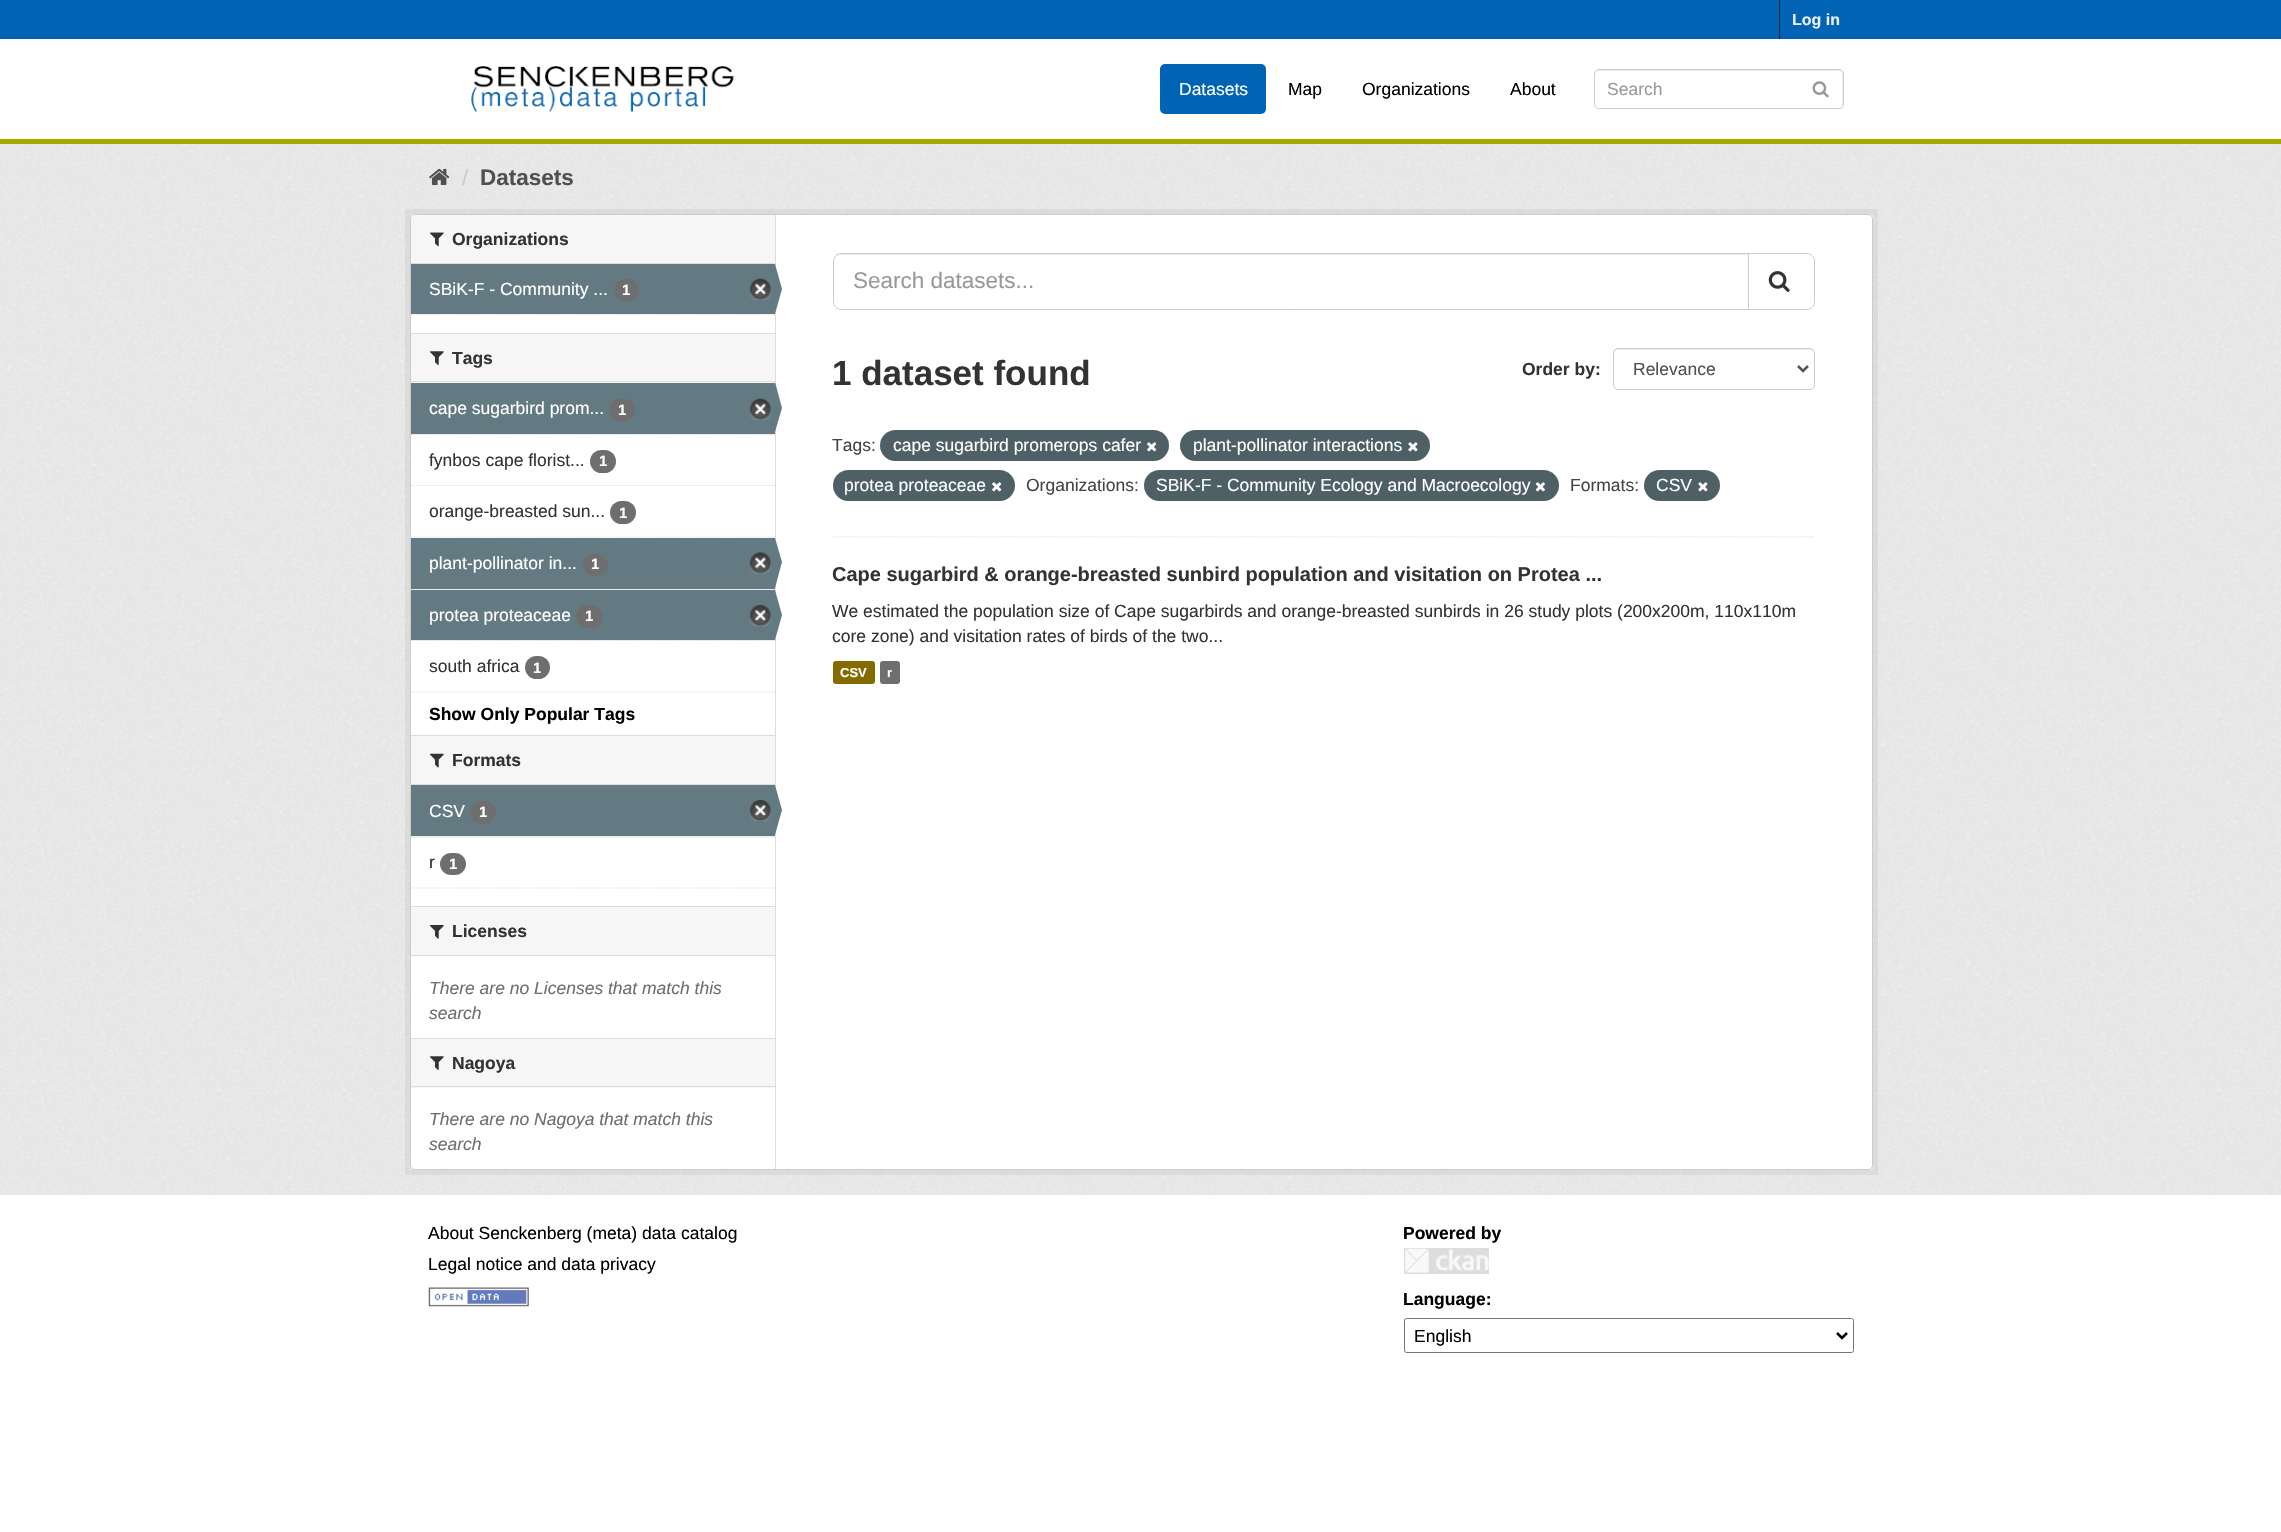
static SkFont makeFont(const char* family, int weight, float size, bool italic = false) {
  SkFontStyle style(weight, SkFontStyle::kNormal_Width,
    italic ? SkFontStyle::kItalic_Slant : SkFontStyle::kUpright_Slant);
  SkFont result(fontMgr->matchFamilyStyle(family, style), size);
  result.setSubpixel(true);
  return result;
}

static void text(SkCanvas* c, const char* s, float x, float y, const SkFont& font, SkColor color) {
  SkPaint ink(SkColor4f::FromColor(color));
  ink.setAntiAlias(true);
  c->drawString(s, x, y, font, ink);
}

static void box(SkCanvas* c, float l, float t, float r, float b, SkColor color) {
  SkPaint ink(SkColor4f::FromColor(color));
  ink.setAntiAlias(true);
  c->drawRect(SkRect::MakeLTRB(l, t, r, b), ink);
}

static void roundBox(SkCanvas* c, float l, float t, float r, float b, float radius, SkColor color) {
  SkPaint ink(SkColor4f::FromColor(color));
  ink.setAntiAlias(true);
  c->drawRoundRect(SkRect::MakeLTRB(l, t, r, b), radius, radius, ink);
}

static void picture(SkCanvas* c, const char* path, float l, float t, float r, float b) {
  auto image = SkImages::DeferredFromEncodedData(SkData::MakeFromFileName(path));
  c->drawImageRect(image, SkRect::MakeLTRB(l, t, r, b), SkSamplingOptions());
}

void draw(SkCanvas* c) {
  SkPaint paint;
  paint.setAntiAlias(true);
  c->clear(0xffffffff);
  box(c, 0, 0, 2281, 39, 0xff0063b4);
  box(c, 1779, 0, 1780, 39, 0xff00232e);
  SkFont face1 = makeFont("Liberation Sans", 700, 16);
  text(c, "Log in", 1792, 25, face1, 0xffeeeeff);
  box(c, 0, 139, 2281, 144, 0xffa4aa00);
  picture(c, "img_01.png", 471, 66, 734, 113);
  roundBox(c, 1160, 64, 1266, 114, 5, 0xff0063b4);
  SkFont face2 = makeFont("Liberation Sans", 400, 17.5f);
  text(c, "Datasets", 1179, 95, face2, 0xffffffff);
  text(c, "Map", 1288, 95, face2, 0xff000000);
  text(c, "Organizations", 1362, 95, face2, 0xff000000);
  text(c, "About", 1510, 95, face2, 0xff000000);
  paint.setColor(0xffececec);
  c->drawPath(SkPathBuilder().moveTo(1599, 71).lineTo(1839, 71).cubicTo(1844, 71, 1842, 83, 1842, 85).lineTo(1842, 107).cubicTo(1842, 106, 1843, 105, 1843, 104).lineTo(1843, 74).cubicTo(1843, 72, 1841, 70, 1839, 70).lineTo(1599, 70).cubicTo(1597, 70, 1595, 72, 1595, 74).lineTo(1595, 75).cubicTo(1595, 73, 1597, 71, 1599, 71).close().detach(), paint);
  paint.setStyle(SkPaint::kStroke_Style);
  paint.setStrokeWidth(1);
  paint.setColor(0xffcccccc);
  c->drawRoundRect(SkRect::MakeLTRB(1594.5f, 69.5f, 1843.5f, 108.5f), 4.5f, 4.5f, paint);
  text(c, "Search", 1607, 95, face2, 0xff999999);
  picture(c, "img_02.png", 1812, 81, 1829, 98);
  box(c, 0, 144, 2281, 1195, 0xffeeeeee);
  picture(c, "img_03.png", 0, 144, 2281, 1195);
  picture(c, "img_04.png", 429, 168, 450, 185);
  SkFont face3 = makeFont("Liberation Sans", 400, 22.5f);
  text(c, "/", 462, 185, face3, 0xffcccccc);
  SkFont face4 = makeFont("Liberation Sans", 700, 22.5f);
  text(c, "Datasets", 480, 185, face4, 0xff505050);
  paint.setStrokeWidth(5);
  paint.setColor(0x0d000000);
  c->drawRect(SkRect::MakeLTRB(407.5f, 211.5f, 1875.5f, 1172.5f), paint);
  paint.setStyle(SkPaint::kFill_Style);
  paint.setColor(0xffffffff);
  c->drawRoundRect(SkRect::MakeLTRB(410.5f, 214.5f, 1872.5f, 1169.5f), 4.5f, 4.5f, paint);
  paint.setStyle(SkPaint::kStroke_Style);
  paint.setStrokeWidth(1);
  paint.setColor(0xffcccccc);
  c->drawRoundRect(SkRect::MakeLTRB(410.5f, 214.5f, 1872.5f, 1169.5f), 4.5f, 4.5f, paint);
  paint.setStyle(SkPaint::kFill_Style);
  paint.setColor(0xfff6f6f6);
  c->drawPath(SkPathBuilder().moveTo(415, 215).lineTo(775, 215).lineTo(775, 264).lineTo(411, 264).lineTo(411, 219).cubicTo(411, 217, 413, 215, 415, 215).close().detach(), paint);
  box(c, 411, 263, 775, 264, 0xffdddddd);
  picture(c, "img_05.png", 430, 232, 444, 247);
  SkFont face5 = makeFont("Liberation Sans", 700, 17.5f);
  text(c, "Organizations", 452, 245, face5, 0xff333333);
  paint.setStyle(SkPaint::kStroke_Style);
  paint.setStrokeWidth(1.2f);
  paint.setColor(0xffdddddd);
  paint.setPathEffect(SkDashPathEffect::Make({{1.25f, 1.25f}}, 0));
  c->drawPath(SkPathBuilder().moveTo(411, 314.5f).lineTo(775, 314.5f).detach(), paint);
  paint.setPathEffect(nullptr);
  box(c, 411, 264, 775, 314, 0xff647a82);
  text(c, "SBiK-F - Community ...", 429, 295, face2, 0xffffffff);
  roundBox(c, 614, 279, 639, 301, 11, 0xff6e6e6e);
  SkFont face6 = makeFont("Liberation Sans", 700, 15);
  text(c, "1", 622, 295, face6, 0xffffffff);
  picture(c, "img_06.png", 750, 278, 772, 300);
  box(c, 775, 215, 776, 1169, 0xffdddddd);
  paint.setStyle(SkPaint::kFill_Style);
  paint.setColor(0xff647a82);
  c->drawPath(SkPathBuilder().moveTo(775, 314).lineTo(775, 264).lineTo(782, 289).close().detach(), paint);
  box(c, 411, 334, 775, 383, 0xfff6f6f6);
  box(c, 411, 333, 775, 334, 0xffdddddd);
  box(c, 411, 381, 775, 382, 0xffdddddd);
  picture(c, "img_07.png", 430, 351, 444, 365);
  text(c, "Tags", 452, 364, face5, 0xff333333);
  box(c, 412, 434, 775, 435, 0xfff6f6f6);
  paint.setStyle(SkPaint::kStroke_Style);
  paint.setColor(0xffdddddd);
  paint.setPathEffect(SkDashPathEffect::Make({{1.25f, 1.25f}}, 0));
  c->drawPath(SkPathBuilder().moveTo(411, 434.5f).lineTo(775, 434.5f).detach(), paint);
  paint.setPathEffect(nullptr);
  box(c, 411, 383, 775, 434, 0xff647a82);
  text(c, "cape sugarbird prom...", 429, 414, face2, 0xffffffff);
  roundBox(c, 609, 399, 635, 421, 11, 0xff6e6e6e);
  text(c, "1", 618, 415, face6, 0xffffffff);
  picture(c, "img_08.png", 750, 398, 772, 420);
  paint.setStyle(SkPaint::kFill_Style);
  paint.setColor(0xff647a82);
  c->drawPath(SkPathBuilder().moveTo(775, 432).lineTo(775, 382).lineTo(782, 408).close().detach(), paint);
  paint.setStyle(SkPaint::kStroke_Style);
  paint.setColor(0xffdddddd);
  paint.setPathEffect(SkDashPathEffect::Make({{1.25f, 1.25f}}, 0));
  c->drawPath(SkPathBuilder().moveTo(411, 485.5f).lineTo(775, 485.5f).detach(), paint);
  paint.setPathEffect(nullptr);
  text(c, "fynbos cape florist...", 429, 466, face2, 0xff333333);
  roundBox(c, 590, 450, 616, 473, 11.5f, 0xff6e6e6e);
  text(c, "1", 599, 466, face6, 0xffffffff);
  paint.setPathEffect(SkDashPathEffect::Make({{1.25f, 1.25f}}, 0));
  c->drawPath(SkPathBuilder().moveTo(411, 537).lineTo(775, 537).detach(), paint);
  paint.setPathEffect(nullptr);
  text(c, "orange-breasted sun...", 429, 517, face2, 0xff333333);
  roundBox(c, 610, 501, 636, 524, 11.5f, 0xff6e6e6e);
  text(c, "1", 619, 518, face6, 0xffffffff);
  box(c, 412, 589, 775, 590, 0xfff6f6f6);
  paint.setPathEffect(SkDashPathEffect::Make({{1.25f, 1.25f}}, 0));
  c->drawPath(SkPathBuilder().moveTo(411, 589.5f).lineTo(775, 589.5f).detach(), paint);
  paint.setPathEffect(nullptr);
  box(c, 411, 538, 775, 589, 0xff647a82);
  text(c, "plant-pollinator in...", 429, 569, face2, 0xffffffff);
  roundBox(c, 583, 554, 608, 576, 11, 0xff6e6e6e);
  text(c, "1", 591, 569, face6, 0xffffffff);
  picture(c, "img_09.png", 750, 552, 772, 574);
  paint.setStyle(SkPaint::kFill_Style);
  paint.setColor(0xff647a82);
  c->drawPath(SkPathBuilder().moveTo(775, 588).lineTo(775, 538).lineTo(782, 562).close().detach(), paint);
  box(c, 412, 640, 775, 641, 0xfff6f6f6);
  paint.setStyle(SkPaint::kStroke_Style);
  paint.setColor(0xffdddddd);
  paint.setPathEffect(SkDashPathEffect::Make({{1.25f, 1.25f}}, 0));
  c->drawPath(SkPathBuilder().moveTo(411, 640.5f).lineTo(775, 640.5f).detach(), paint);
  paint.setPathEffect(nullptr);
  box(c, 411, 590, 775, 640, 0xff647a82);
  text(c, "protea proteaceae", 429, 621, face2, 0xffffffff);
  roundBox(c, 576, 605, 603, 628, 11.5f, 0xff6e6e6e);
  text(c, "1", 585, 621, face6, 0xffffffff);
  picture(c, "img_10.png", 750, 605, 772, 627);
  paint.setStyle(SkPaint::kFill_Style);
  paint.setColor(0xff647a82);
  c->drawPath(SkPathBuilder().moveTo(775, 640).lineTo(775, 590).lineTo(782, 615).close().detach(), paint);
  text(c, "south africa", 429, 672, face2, 0xff333333);
  roundBox(c, 525, 656, 550, 679, 11.5f, 0xff6e6e6e);
  text(c, "1", 533, 673, face6, 0xffffffff);
  paint.setStyle(SkPaint::kStroke_Style);
  paint.setColor(0xffdddddd);
  paint.setPathEffect(SkDashPathEffect::Make({{1.25f, 1.25f}}, 0));
  c->drawPath(SkPathBuilder().moveTo(411, 692).lineTo(775, 692).detach(), paint);
  paint.setPathEffect(nullptr);
  text(c, "Show Only Popular Tags", 429, 720, face5, 0xff000000);
  box(c, 411, 736, 775, 784, 0xfff6f6f6);
  box(c, 411, 735, 775, 736, 0xffdddddd);
  box(c, 411, 784, 775, 785, 0xffdddddd);
  picture(c, "img_11.png", 430, 753, 444, 768);
  text(c, "Formats", 452, 766, face5, 0xff333333);
  box(c, 411, 836, 775, 838, 0xfff6f6f6);
  paint.setPathEffect(SkDashPathEffect::Make({{1.25f, 1.25f}}, 0));
  c->drawPath(SkPathBuilder().moveTo(411, 837).lineTo(775, 837).detach(), paint);
  paint.setPathEffect(nullptr);
  box(c, 411, 785, 775, 836, 0xff647a82);
  text(c, "CSV", 429, 817, face2, 0xffffffff);
  roundBox(c, 470, 801, 496, 824, 11.5f, 0xff6e6e6e);
  text(c, "1", 479, 817, face6, 0xffffffff);
  picture(c, "img_10.png", 750, 800, 772, 822);
  paint.setStyle(SkPaint::kFill_Style);
  paint.setColor(0xff647a82);
  c->drawPath(SkPathBuilder().moveTo(775, 835).lineTo(775, 785).lineTo(782, 810).close().detach(), paint);
  text(c, "r", 429, 868, face2, 0xff333333);
  roundBox(c, 440, 853, 466, 875, 11, 0xff6e6e6e);
  text(c, "1", 449, 869, face6, 0xffffffff);
  paint.setStyle(SkPaint::kStroke_Style);
  paint.setColor(0xffdddddd);
  paint.setPathEffect(SkDashPathEffect::Make({{1.25f, 1.25f}}, 0));
  c->drawPath(SkPathBuilder().moveTo(411, 888).lineTo(775, 888).detach(), paint);
  paint.setPathEffect(nullptr);
  box(c, 411, 907, 775, 955, 0xfff6f6f6);
  box(c, 411, 906, 775, 907, 0xffdddddd);
  box(c, 411, 955, 775, 956, 0xffdddddd);
  picture(c, "img_12.png", 430, 925, 444, 939);
  text(c, "Licenses", 452, 937, face5, 0xff333333);
  SkFont face7 = makeFont("Liberation Sans", 400, 17.5f, true);
  text(c, "There are no Licenses that match this", 429, 994, face7, 0xff6e6e6e);
  text(c, "search", 429, 1019, face7, 0xff6e6e6e);
  box(c, 411, 1039, 775, 1088, 0xfff6f6f6);
  box(c, 411, 1038, 775, 1039, 0xffdddddd);
  box(c, 411, 1086, 775, 1087, 0xffdddddd);
  picture(c, "img_07.png", 430, 1056, 444, 1070);
  text(c, "Nagoya", 452, 1069, face5, 0xff333333);
  text(c, "There are no Nagoya that match this", 429, 1125, face7, 0xff6e6e6e);
  text(c, "search", 429, 1150, face7, 0xff6e6e6e);
  paint.setPathEffect(SkDashPathEffect::Make({{1.25f, 1.25f}}, 0));
  c->drawPath(SkPathBuilder().moveTo(832.5f, 537).lineTo(1815, 537).detach(), paint);
  paint.setPathEffect(nullptr);
  paint.setStyle(SkPaint::kFill_Style);
  paint.setColor(0xffececec);
  c->drawPath(SkPathBuilder().moveTo(840, 255).lineTo(1748, 255).lineTo(1748, 254).lineTo(840, 254).cubicTo(837, 254, 834, 257, 834, 260).lineTo(834, 261).cubicTo(834, 258, 837, 255, 840, 255).close().detach(), paint);
  paint.setStyle(SkPaint::kStroke_Style);
  paint.setStrokeWidth(1);
  paint.setColor(0xffcccccc);
  c->drawPath(SkPathBuilder().moveTo(841, 253.5f).lineTo(1748.5f, 253.5f).lineTo(1748.5f, 309.5f).lineTo(841, 309.5f).cubicTo(837, 309.5f, 833.5f, 306, 833.5f, 302).lineTo(833.5f, 261).cubicTo(833.5f, 257, 837, 253.5f, 841, 253.5f).close().detach(), paint);
  text(c, "Search datasets...", 853, 288, face3, 0xff999999);
  paint.setStyle(SkPaint::kFill_Style);
  paint.setColor(0xffffffff);
  c->drawPath(SkPathBuilder().moveTo(1748.5f, 253.5f).lineTo(1807, 253.5f).cubicTo(1811, 253.5f, 1814.5f, 257, 1814.5f, 261).lineTo(1814.5f, 302).cubicTo(1814.5f, 306, 1811, 309.5f, 1807, 309.5f).lineTo(1748.5f, 309.5f).close().detach(), paint);
  paint.setStyle(SkPaint::kStroke_Style);
  paint.setColor(0xffcccccc);
  c->drawPath(SkPathBuilder().moveTo(1748.5f, 253.5f).lineTo(1807, 253.5f).cubicTo(1811, 253.5f, 1814.5f, 257, 1814.5f, 261).lineTo(1814.5f, 302).cubicTo(1814.5f, 306, 1811, 309.5f, 1807, 309.5f).lineTo(1748.5f, 309.5f).close().detach(), paint);
  picture(c, "img_13.png", 1768, 271, 1790, 292);
  SkFont face8 = makeFont("Liberation Sans", 700, 35);
  text(c, "1 dataset found", 832, 385, face8, 0xff333333);
  text(c, "Order by:", 1522, 375, face5, 0xff333333);
  paint.setStyle(SkPaint::kFill_Style);
  paint.setColor(0xffececec);
  c->drawPath(SkPathBuilder().moveTo(1618, 350).lineTo(1810, 350).cubicTo(1812, 350, 1814, 352, 1814, 354).lineTo(1814, 353).cubicTo(1814, 351, 1812, 349, 1810, 349).lineTo(1618, 349).cubicTo(1616, 349, 1614, 351, 1614, 353).lineTo(1614, 354).cubicTo(1614, 352, 1615, 350, 1618, 350).close().detach(), paint);
  paint.setStyle(SkPaint::kStroke_Style);
  paint.setColor(0xffcccccc);
  c->drawRoundRect(SkRect::MakeLTRB(1613.5f, 348.5f, 1814.5f, 389.5f), 4.5f, 4.5f, paint);
  paint.setStrokeWidth(2.5f);
  paint.setColor(0xff555555);
  c->drawPath(SkPathBuilder().moveTo(1798, 366).lineTo(1803, 371).lineTo(1808, 366).detach(), paint);
  text(c, "Relevance", 1633, 375, face2, 0xff505050);
  text(c, "Tags:", 832, 451, face2, 0xff444444);
  roundBox(c, 880, 430, 1169, 461, 15.5f, 0xff4e5f65);
  text(c, "cape sugarbird promerops cafer", 893, 451, face2, 0xffffffff);
  picture(c, "img_14.png", 1147, 442, 1157, 452);
  roundBox(c, 1180, 430, 1430, 461, 15.5f, 0xff4e5f65);
  text(c, "plant-pollinator interactions", 1193, 451, face2, 0xffffffff);
  picture(c, "img_15.png", 1408, 442, 1418, 452);
  roundBox(c, 833, 470, 1015, 501, 15.5f, 0xff4e5f65);
  text(c, "protea proteaceae", 844, 491, face2, 0xffffffff);
  picture(c, "img_14.png", 992, 482, 1002, 492);
  text(c, "Organizations:", 1026, 491, face2, 0xff444444);
  roundBox(c, 1144, 470, 1559, 501, 15.5f, 0xff4e5f65);
  text(c, "SBiK-F - Community Ecology and Macroecology", 1156, 491, face2, 0xffffffff);
  picture(c, "img_16.png", 1535, 482, 1545, 492);
  text(c, "Formats:", 1570, 491, face2, 0xff444444);
  roundBox(c, 1644, 470, 1720, 501, 15.5f, 0xff4e5f65);
  text(c, "CSV", 1656, 491, face2, 0xffffffff);
  picture(c, "img_15.png", 1698, 482, 1708, 492);
  SkFont face9 = makeFont("Liberation Sans", 700, 20);
  text(c, "Cape sugarbird & orange-breasted sunbird population and visitation on Protea ...", 832, 581, face9, 0xff333333);
  text(c, "We estimated the population size of Cape sugarbirds and orange-breasted sunbirds in 26 study plots (200x200m, 110x110m", 832, 617, face2, 0xff333333);
  text(c, "core zone) and visitation rates of birds of the two...", 832, 642, face2, 0xff333333);
  roundBox(c, 833, 661, 875, 684, 3, 0xff856a00);
  SkFont face10 = makeFont("Liberation Sans", 700, 13);
  text(c, "CSV", 840, 677, face10, 0xffffffff);
  roundBox(c, 880, 661, 900, 684, 3, 0xff6e6e6e);
  text(c, "r", 887, 677, face10, 0xffffffff);
  text(c, "About Senckenberg (meta) data catalog", 428, 1239, face2, 0xff000000);
  text(c, "Legal notice and data privacy", 428, 1270, face2, 0xff000000);
  picture(c, "img_17.png", 428, 1287, 529, 1307);
  text(c, "Powered by", 1403, 1239, face5, 0xff000000);
  box(c, 1404, 1248, 1489, 1274, 0xffdddddd);
  picture(c, "img_18.png", 1405, 1248, 1489, 1273);
  text(c, "Language:", 1403, 1305, face5, 0xff000000);
  paint.setStrokeWidth(1);
  paint.setColor(0xff767676);
  c->drawRoundRect(SkRect::MakeLTRB(1404.5f, 1318.5f, 1853.5f, 1352.5f), 2, 2, paint);
  paint.setStrokeWidth(2.5f);
  paint.setColor(0xff000000);
  c->drawPath(SkPathBuilder().moveTo(1837, 1333).lineTo(1842, 1338).lineTo(1847, 1333).detach(), paint);
  text(c, "English", 1414, 1342, face2, 0xff000000);
}
